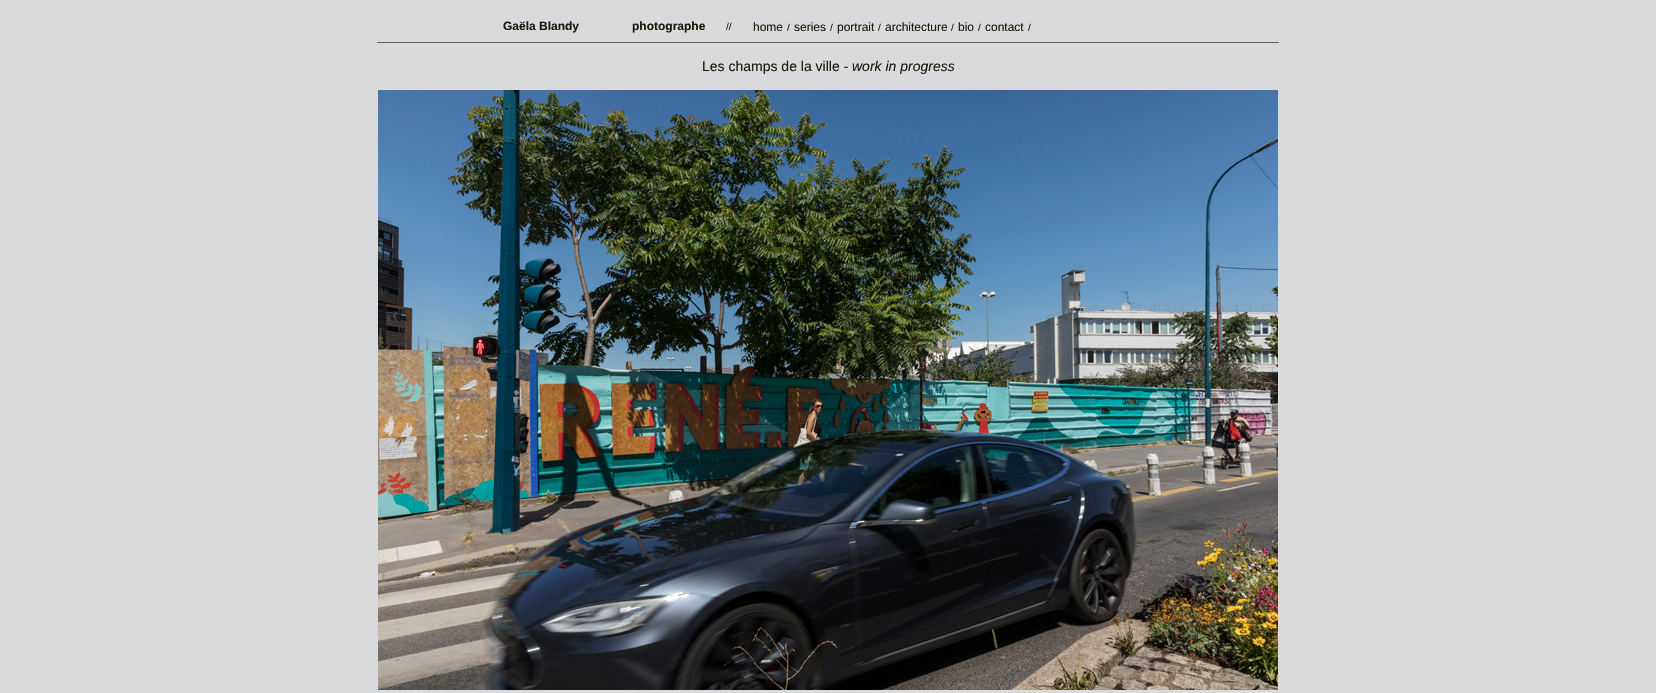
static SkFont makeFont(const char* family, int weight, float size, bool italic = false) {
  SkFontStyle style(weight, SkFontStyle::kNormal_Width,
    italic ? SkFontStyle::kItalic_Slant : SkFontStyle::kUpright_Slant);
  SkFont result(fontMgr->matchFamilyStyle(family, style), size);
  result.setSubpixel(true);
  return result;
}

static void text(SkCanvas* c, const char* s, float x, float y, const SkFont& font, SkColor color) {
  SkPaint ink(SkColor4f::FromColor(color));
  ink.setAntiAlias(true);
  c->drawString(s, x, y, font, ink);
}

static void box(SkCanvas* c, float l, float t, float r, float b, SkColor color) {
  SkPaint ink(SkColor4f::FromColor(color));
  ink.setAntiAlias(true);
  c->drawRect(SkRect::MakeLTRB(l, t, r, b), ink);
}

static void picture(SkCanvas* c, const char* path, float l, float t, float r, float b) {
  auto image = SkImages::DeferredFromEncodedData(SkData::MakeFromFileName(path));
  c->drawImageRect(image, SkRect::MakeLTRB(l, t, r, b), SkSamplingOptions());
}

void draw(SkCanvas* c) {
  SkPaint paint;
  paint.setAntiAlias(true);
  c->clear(0xffd9dadc);
  box(c, 377, 42, 1279, 43, 0xff666666);
  SkFont face1 = makeFont("Liberation Sans", 700, 12);
  text(c, "Gaëla Blandy", 503, 30, face1, 0xff19180b);
  text(c, "photographe", 632, 30, face1, 0xff19180b);
  SkFont face2 = makeFont("Liberation Sans", 400, 10);
  text(c, "//", 726, 30, face2, 0xff19180b);
  SkFont face3 = makeFont("Liberation Sans", 400, 12);
  text(c, "home", 753, 31, face3, 0xff19180b);
  text(c, "/", 787, 31, face2, 0xff19180b);
  text(c, "series", 794, 31, face3, 0xff19180b);
  text(c, "/", 830, 31, face2, 0xff19180b);
  text(c, "portrait", 837, 31, face3, 0xff19180b);
  text(c, "/", 878, 31, face2, 0xff19180b);
  text(c, "architecture", 885, 31, face3, 0xff19180b);
  text(c, "/", 951, 31, face2, 0xff19180b);
  text(c, "bio", 958, 31, face3, 0xff19180b);
  text(c, "/", 978, 31, face2, 0xff19180b);
  text(c, "contact", 985, 31, face3, 0xff19180b);
  text(c, "/", 1028, 31, face2, 0xff19180b);
  SkFont face4 = makeFont("Liberation Sans", 400, 14);
  text(c, "Les champs de la ville -", 702, 71, face4, 0xff19180b);
  SkFont face5 = makeFont("Liberation Sans", 400, 14, true);
  text(c, "work in progress", 852, 71, face5, 0xff19180b);
  picture(c, "img_01.png", 378, 90, 1278, 690);
}
